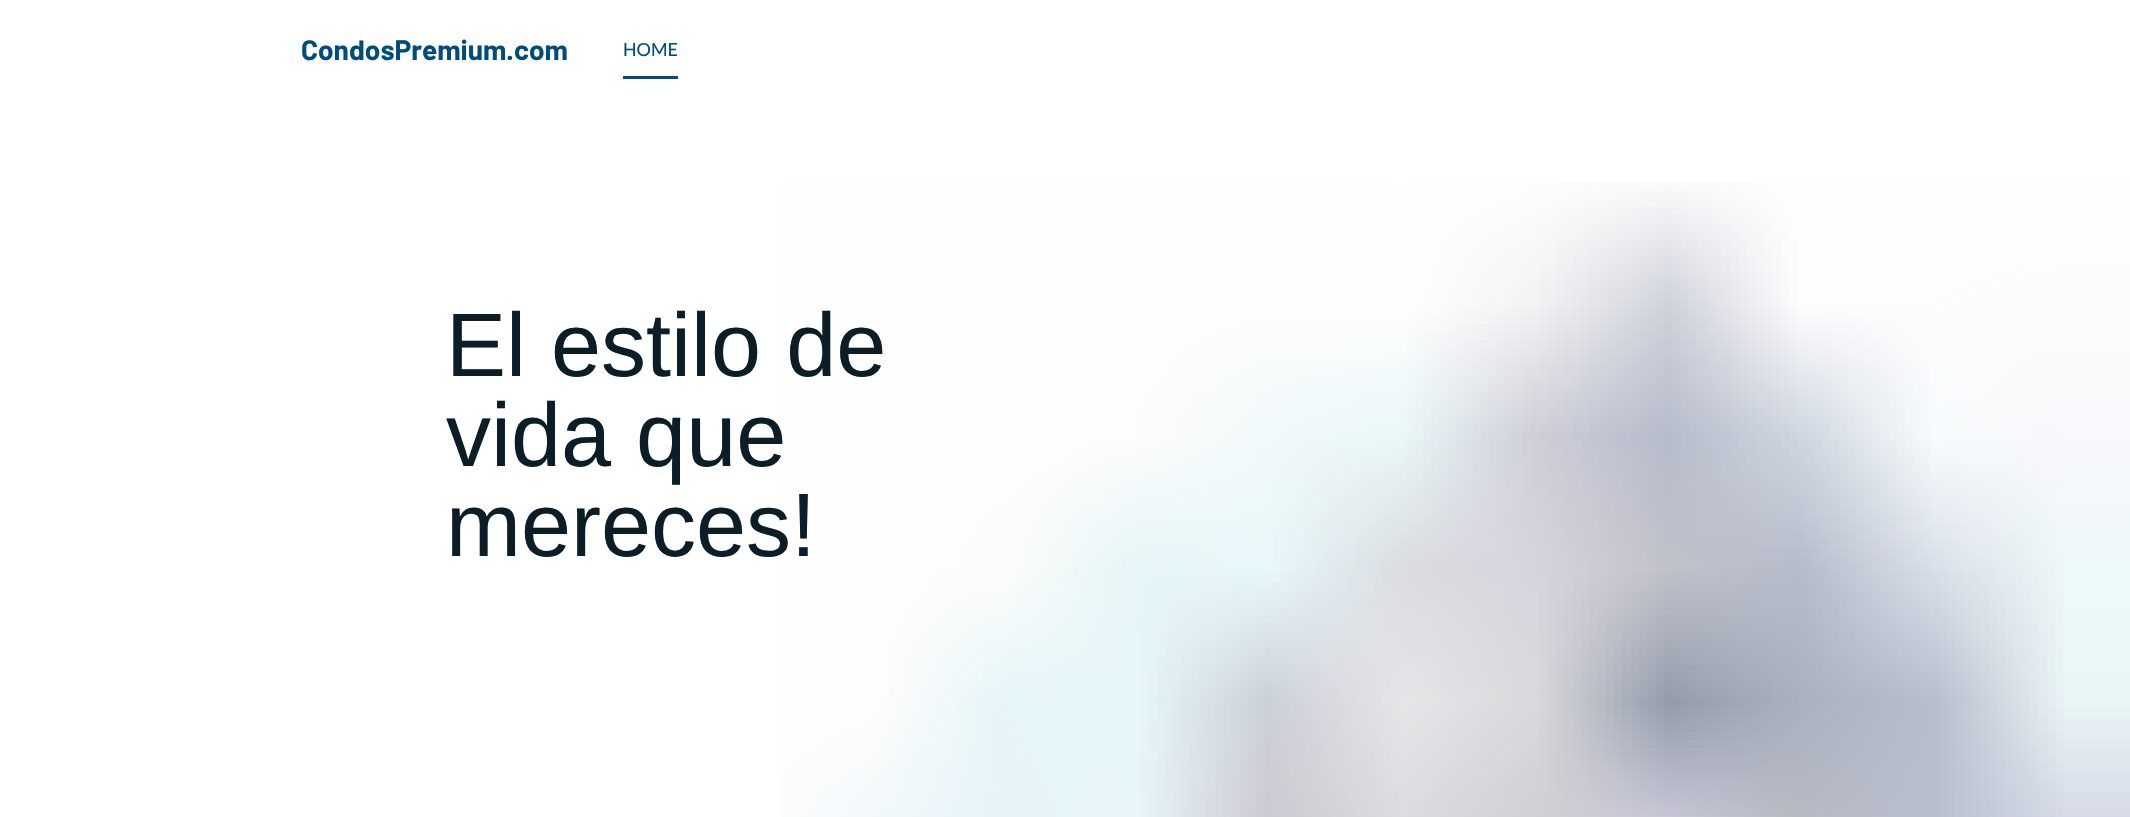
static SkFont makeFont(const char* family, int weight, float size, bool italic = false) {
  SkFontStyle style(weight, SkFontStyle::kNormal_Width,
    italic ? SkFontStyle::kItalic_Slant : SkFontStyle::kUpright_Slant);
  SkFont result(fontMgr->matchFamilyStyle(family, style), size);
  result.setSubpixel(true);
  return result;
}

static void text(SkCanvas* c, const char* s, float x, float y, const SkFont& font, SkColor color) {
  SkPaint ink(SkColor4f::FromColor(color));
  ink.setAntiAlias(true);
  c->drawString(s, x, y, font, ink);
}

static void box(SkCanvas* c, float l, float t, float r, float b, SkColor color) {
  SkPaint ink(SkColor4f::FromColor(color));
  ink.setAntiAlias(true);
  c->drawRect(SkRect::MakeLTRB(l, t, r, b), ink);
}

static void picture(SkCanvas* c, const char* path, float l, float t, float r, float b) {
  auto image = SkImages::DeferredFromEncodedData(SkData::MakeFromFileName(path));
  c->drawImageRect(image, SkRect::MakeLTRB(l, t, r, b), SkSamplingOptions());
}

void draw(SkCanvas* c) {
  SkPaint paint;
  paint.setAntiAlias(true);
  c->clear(0xffffffff);
  SkFont face1 = makeFont("Barlow", 700, 28);
  text(c, "CondosPremium.com", 301, 60, face1, 0xff004d7d);
  SkFont face2 = makeFont("Lato", 400, 18);
  text(c, "HOME", 623, 56, face2, 0xff004d7d);
  box(c, 623, 76, 678, 79, 0xff004d7d);
  picture(c, "img_01.png", 782, 182, 2130, 817);
  SkFont face3 = makeFont("Liberation Sans", 400, 90);
  text(c, "El estilo de", 446, 376, face3, 0xff0b1d27);
  text(c, "vida que", 446, 466, face3, 0xff0b1d27);
  text(c, "mereces!", 446, 556, face3, 0xff0b1d27);
}
